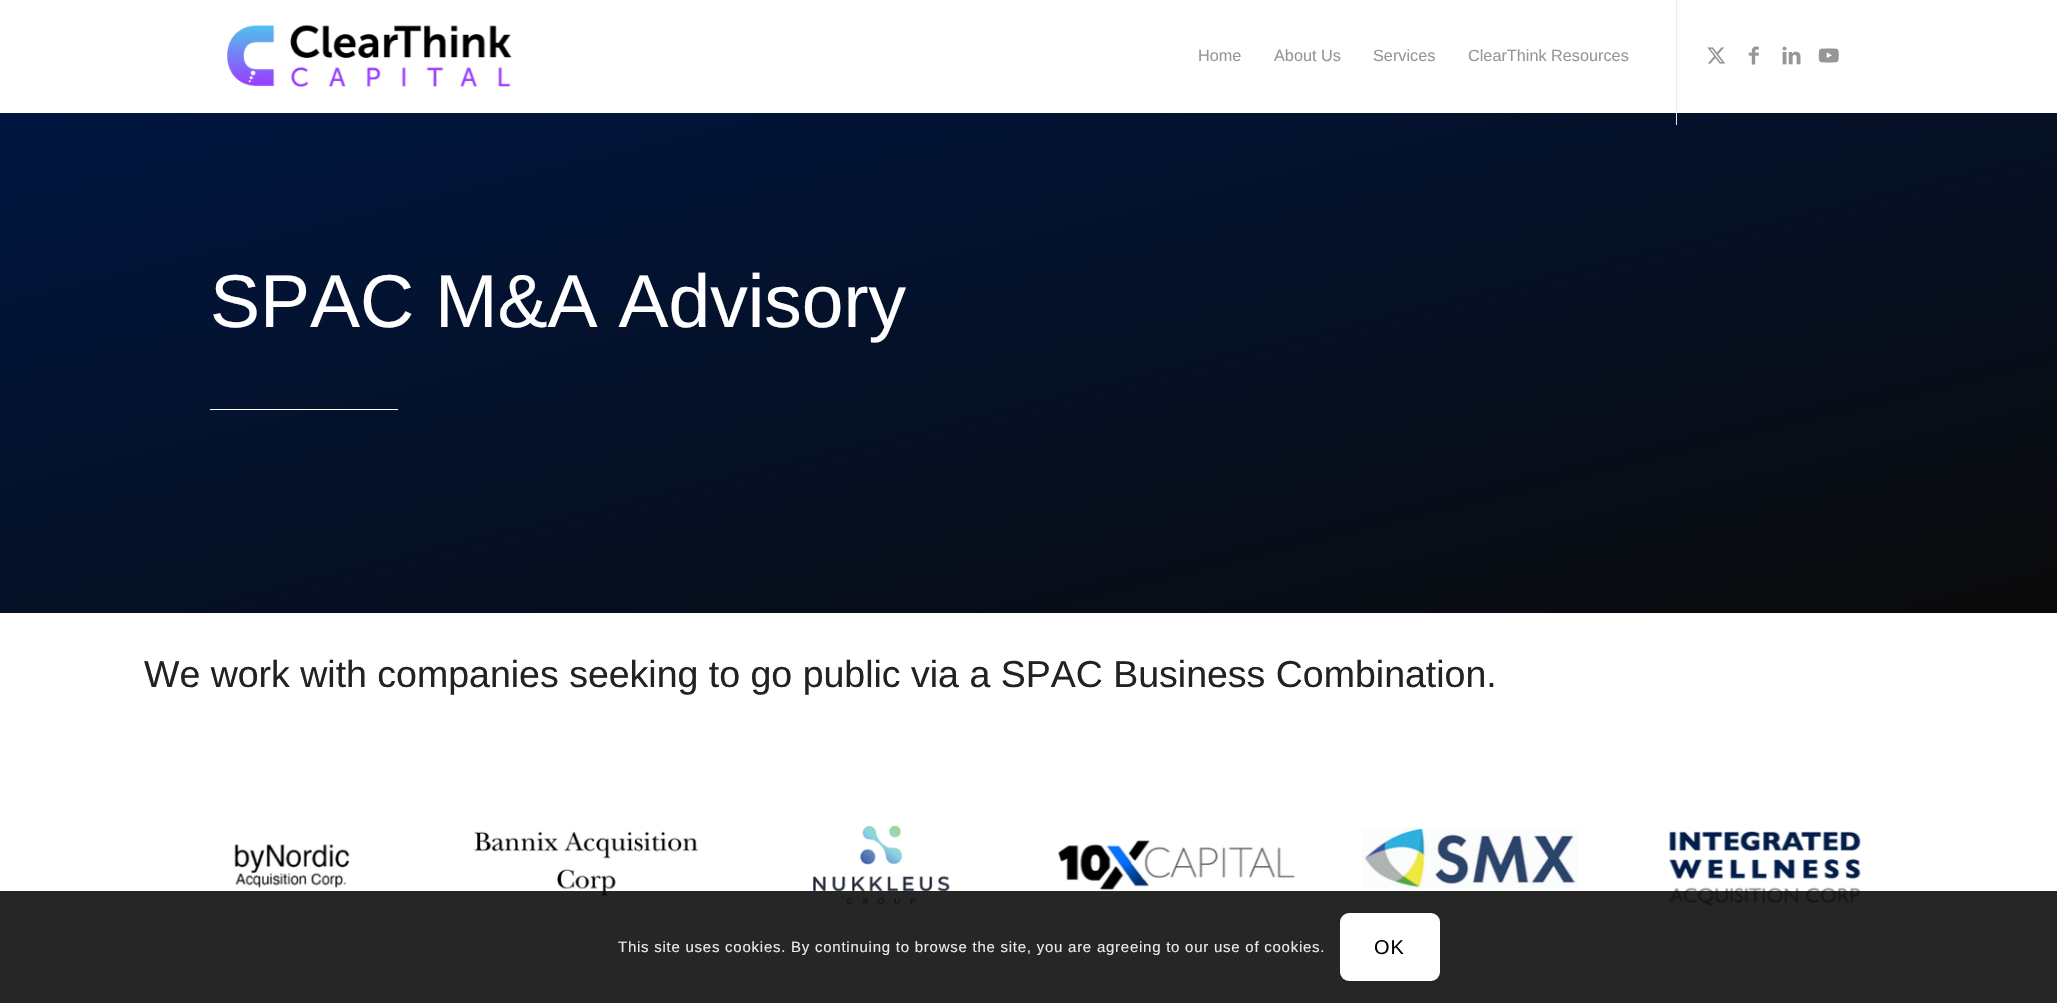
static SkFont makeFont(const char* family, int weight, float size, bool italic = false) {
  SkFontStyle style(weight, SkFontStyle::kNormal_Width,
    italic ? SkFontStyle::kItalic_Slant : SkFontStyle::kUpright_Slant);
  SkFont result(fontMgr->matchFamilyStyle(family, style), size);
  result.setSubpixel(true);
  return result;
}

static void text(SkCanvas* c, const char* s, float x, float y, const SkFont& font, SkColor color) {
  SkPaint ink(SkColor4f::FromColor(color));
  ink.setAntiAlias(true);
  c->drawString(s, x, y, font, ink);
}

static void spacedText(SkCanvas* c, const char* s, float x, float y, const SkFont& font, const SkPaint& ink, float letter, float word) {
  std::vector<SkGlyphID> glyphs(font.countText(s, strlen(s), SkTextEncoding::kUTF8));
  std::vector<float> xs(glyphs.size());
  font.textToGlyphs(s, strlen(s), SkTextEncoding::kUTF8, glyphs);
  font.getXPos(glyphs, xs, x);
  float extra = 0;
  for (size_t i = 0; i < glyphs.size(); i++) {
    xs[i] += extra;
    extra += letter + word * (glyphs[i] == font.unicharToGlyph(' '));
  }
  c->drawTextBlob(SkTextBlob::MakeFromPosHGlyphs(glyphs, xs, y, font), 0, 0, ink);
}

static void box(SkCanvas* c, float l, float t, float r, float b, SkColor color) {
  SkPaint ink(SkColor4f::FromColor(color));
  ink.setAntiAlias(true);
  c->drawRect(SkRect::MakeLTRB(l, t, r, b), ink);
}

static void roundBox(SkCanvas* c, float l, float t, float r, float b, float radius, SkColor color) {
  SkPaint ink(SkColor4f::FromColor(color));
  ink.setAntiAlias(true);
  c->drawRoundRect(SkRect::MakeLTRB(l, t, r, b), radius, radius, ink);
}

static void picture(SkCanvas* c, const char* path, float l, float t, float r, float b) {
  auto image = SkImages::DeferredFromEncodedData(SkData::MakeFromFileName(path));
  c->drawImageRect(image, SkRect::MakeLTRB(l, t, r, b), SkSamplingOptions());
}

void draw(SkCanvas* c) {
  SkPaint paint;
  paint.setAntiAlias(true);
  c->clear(0xffffffff);
  picture(c, "img_01.png", 227, 24, 512, 87);
  {
    const SkColor colors[] = {0xff001641, 0xff0a0a0a};
    const float stops[] = {0, 1};
    const SkPoint ends[] = {{913, -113}, {1145, 835}};
    paint.setShader(SkGradientShader::MakeLinear(ends, colors, stops, 2, SkTileMode::kClamp));
    paint.setAlpha(255);
  }
  c->drawRect(SkRect::MakeLTRB(0, 113, 2057, 613), paint);
  box(c, 1676, 0, 1677, 125, 0xffebebeb);
  SkFont face1 = makeFont("Liberation Sans", 400, 16.25f);
  text(c, "Home", 1198, 61, face1, 0xff969696);
  text(c, "About Us", 1274, 61, face1, 0xff969696);
  text(c, "Services", 1373, 61, face1, 0xff969696);
  text(c, "ClearThink Resources", 1468, 61, face1, 0xff969696);
  picture(c, "img_02.png", 1707, 47, 1726, 64);
  picture(c, "img_03.png", 1748, 46, 1759, 65);
  picture(c, "img_04.png", 1782, 46, 1801, 65);
  picture(c, "img_05.png", 1818, 48, 1839, 63);
  SkFont face2 = makeFont("Liberation Sans", 400, 75);
  text(c, "SPAC M&A Advisory", 210, 327, face2, 0xffffffff);
  box(c, 210, 409, 398, 410, 0xffffffff);
  SkFont face3 = makeFont("Liberation Sans", 400, 37.5f);
  text(c, "We work with companies seeking to go public via a SPAC Business Combination.", 144, 687, face3, 0xff222222);
  picture(c, "img_06.png", 234, 844, 350, 888);
  picture(c, "img_07.png", 474, 831, 699, 897);
  picture(c, "img_08.png", 813, 825, 950, 905);
  picture(c, "img_09.png", 1058, 840, 1295, 890);
  picture(c, "img_10.png", 1362, 827, 1578, 889);
  picture(c, "img_11.png", 1669, 831, 1861, 906);
  box(c, 0, 891, 2057, 1003, 0xd9000000);
  SkFont face4 = makeFont("Liberation Sans", 400, 15);
  paint.setShader(nullptr);
  paint.setColor(0xffe9e9e9);
  spacedText(c, "This site uses cookies. By continuing to browse the site, you are agreeing to our use of cookies.", 618, 952, face4, paint, 0.75f, 0);
  roundBox(c, 1340, 913, 1440, 981, 9, 0xffffffff);
  SkFont face5 = makeFont("Liberation Sans", 400, 20);
  paint.setColor(0xff000000);
  spacedText(c, "OK", 1374, 954, face5, paint, 1, 0);
}
